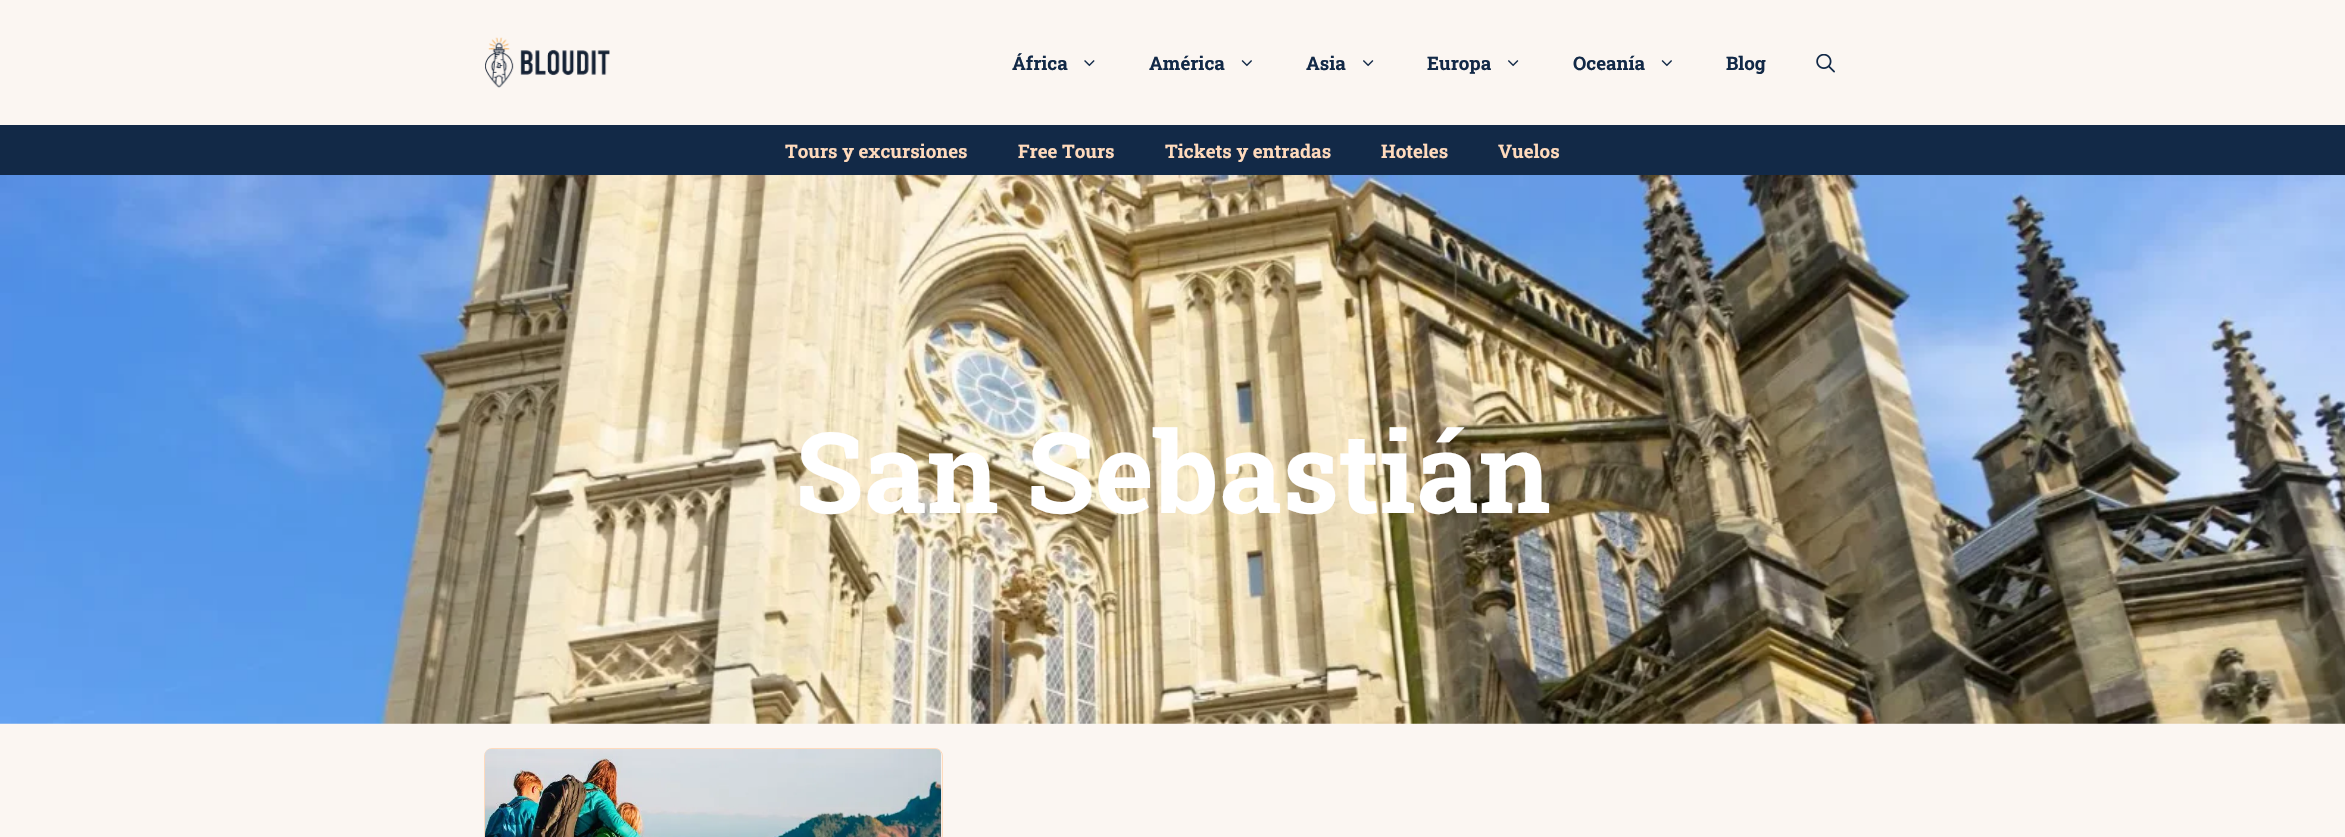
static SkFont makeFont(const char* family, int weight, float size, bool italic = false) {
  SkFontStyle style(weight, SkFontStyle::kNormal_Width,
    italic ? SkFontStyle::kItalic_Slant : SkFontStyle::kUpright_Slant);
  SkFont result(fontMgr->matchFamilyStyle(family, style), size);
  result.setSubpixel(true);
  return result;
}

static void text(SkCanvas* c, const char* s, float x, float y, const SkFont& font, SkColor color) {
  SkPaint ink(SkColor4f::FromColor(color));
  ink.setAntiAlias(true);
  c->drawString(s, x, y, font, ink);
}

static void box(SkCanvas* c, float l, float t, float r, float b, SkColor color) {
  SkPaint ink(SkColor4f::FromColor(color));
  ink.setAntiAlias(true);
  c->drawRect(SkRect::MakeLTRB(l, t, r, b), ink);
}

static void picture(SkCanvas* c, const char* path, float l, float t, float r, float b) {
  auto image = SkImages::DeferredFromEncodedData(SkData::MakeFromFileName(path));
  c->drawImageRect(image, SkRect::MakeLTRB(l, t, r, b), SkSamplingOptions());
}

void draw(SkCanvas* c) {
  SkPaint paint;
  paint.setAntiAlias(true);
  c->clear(0xfffbf6f2);
  picture(c, "img_01.png", 485, 37, 610, 88);
  SkFont face1 = makeFont("Roboto Slab", 700, 18.75f);
  text(c, "África", 1012, 70, face1, 0xff122947);
  picture(c, "img_02.png", 1084, 60, 1095, 67);
  text(c, "América", 1149, 70, face1, 0xff122947);
  picture(c, "img_03.png", 1241, 60, 1252, 67);
  text(c, "Asia", 1306, 70, face1, 0xff122947);
  picture(c, "img_04.png", 1363, 60, 1374, 67);
  text(c, "Europa", 1427, 70, face1, 0xff122947);
  picture(c, "img_04.png", 1508, 60, 1519, 67);
  text(c, "Oceanía", 1573, 70, face1, 0xff122947);
  picture(c, "img_03.png", 1661, 60, 1672, 67);
  text(c, "Blog", 1726, 70, face1, 0xff122947);
  picture(c, "img_05.png", 1816, 54, 1835, 73);
  box(c, 0, 125, 2345, 175, 0xff122947);
  text(c, "Tours y excursiones", 785, 158, face1, 0xffffdabc);
  text(c, "Free Tours", 1018, 158, face1, 0xffffdabc);
  text(c, "Tickets y entradas", 1165, 158, face1, 0xffffdabc);
  text(c, "Hoteles", 1381, 158, face1, 0xffffdabc);
  text(c, "Vuelos", 1498, 158, face1, 0xffffdabc);
  picture(c, "img_06.png", 0, 175, 2345, 724);
  SkFont face2 = makeFont("Roboto Slab", 700, 112.5f);
  text(c, "San Sebastián", 795, 513, face2, 0xffffffff);
  paint.setStyle(SkPaint::kStroke_Style);
  paint.setStrokeWidth(1);
  paint.setColor(0xffffdabc);
  c->drawRoundRect(SkRect::MakeLTRB(484.5f, 748.5f, 942.5f, 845.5f), 7.5f, 7.5f, paint);
  picture(c, "img_07.png", 485, 749, 942, 837);
}
